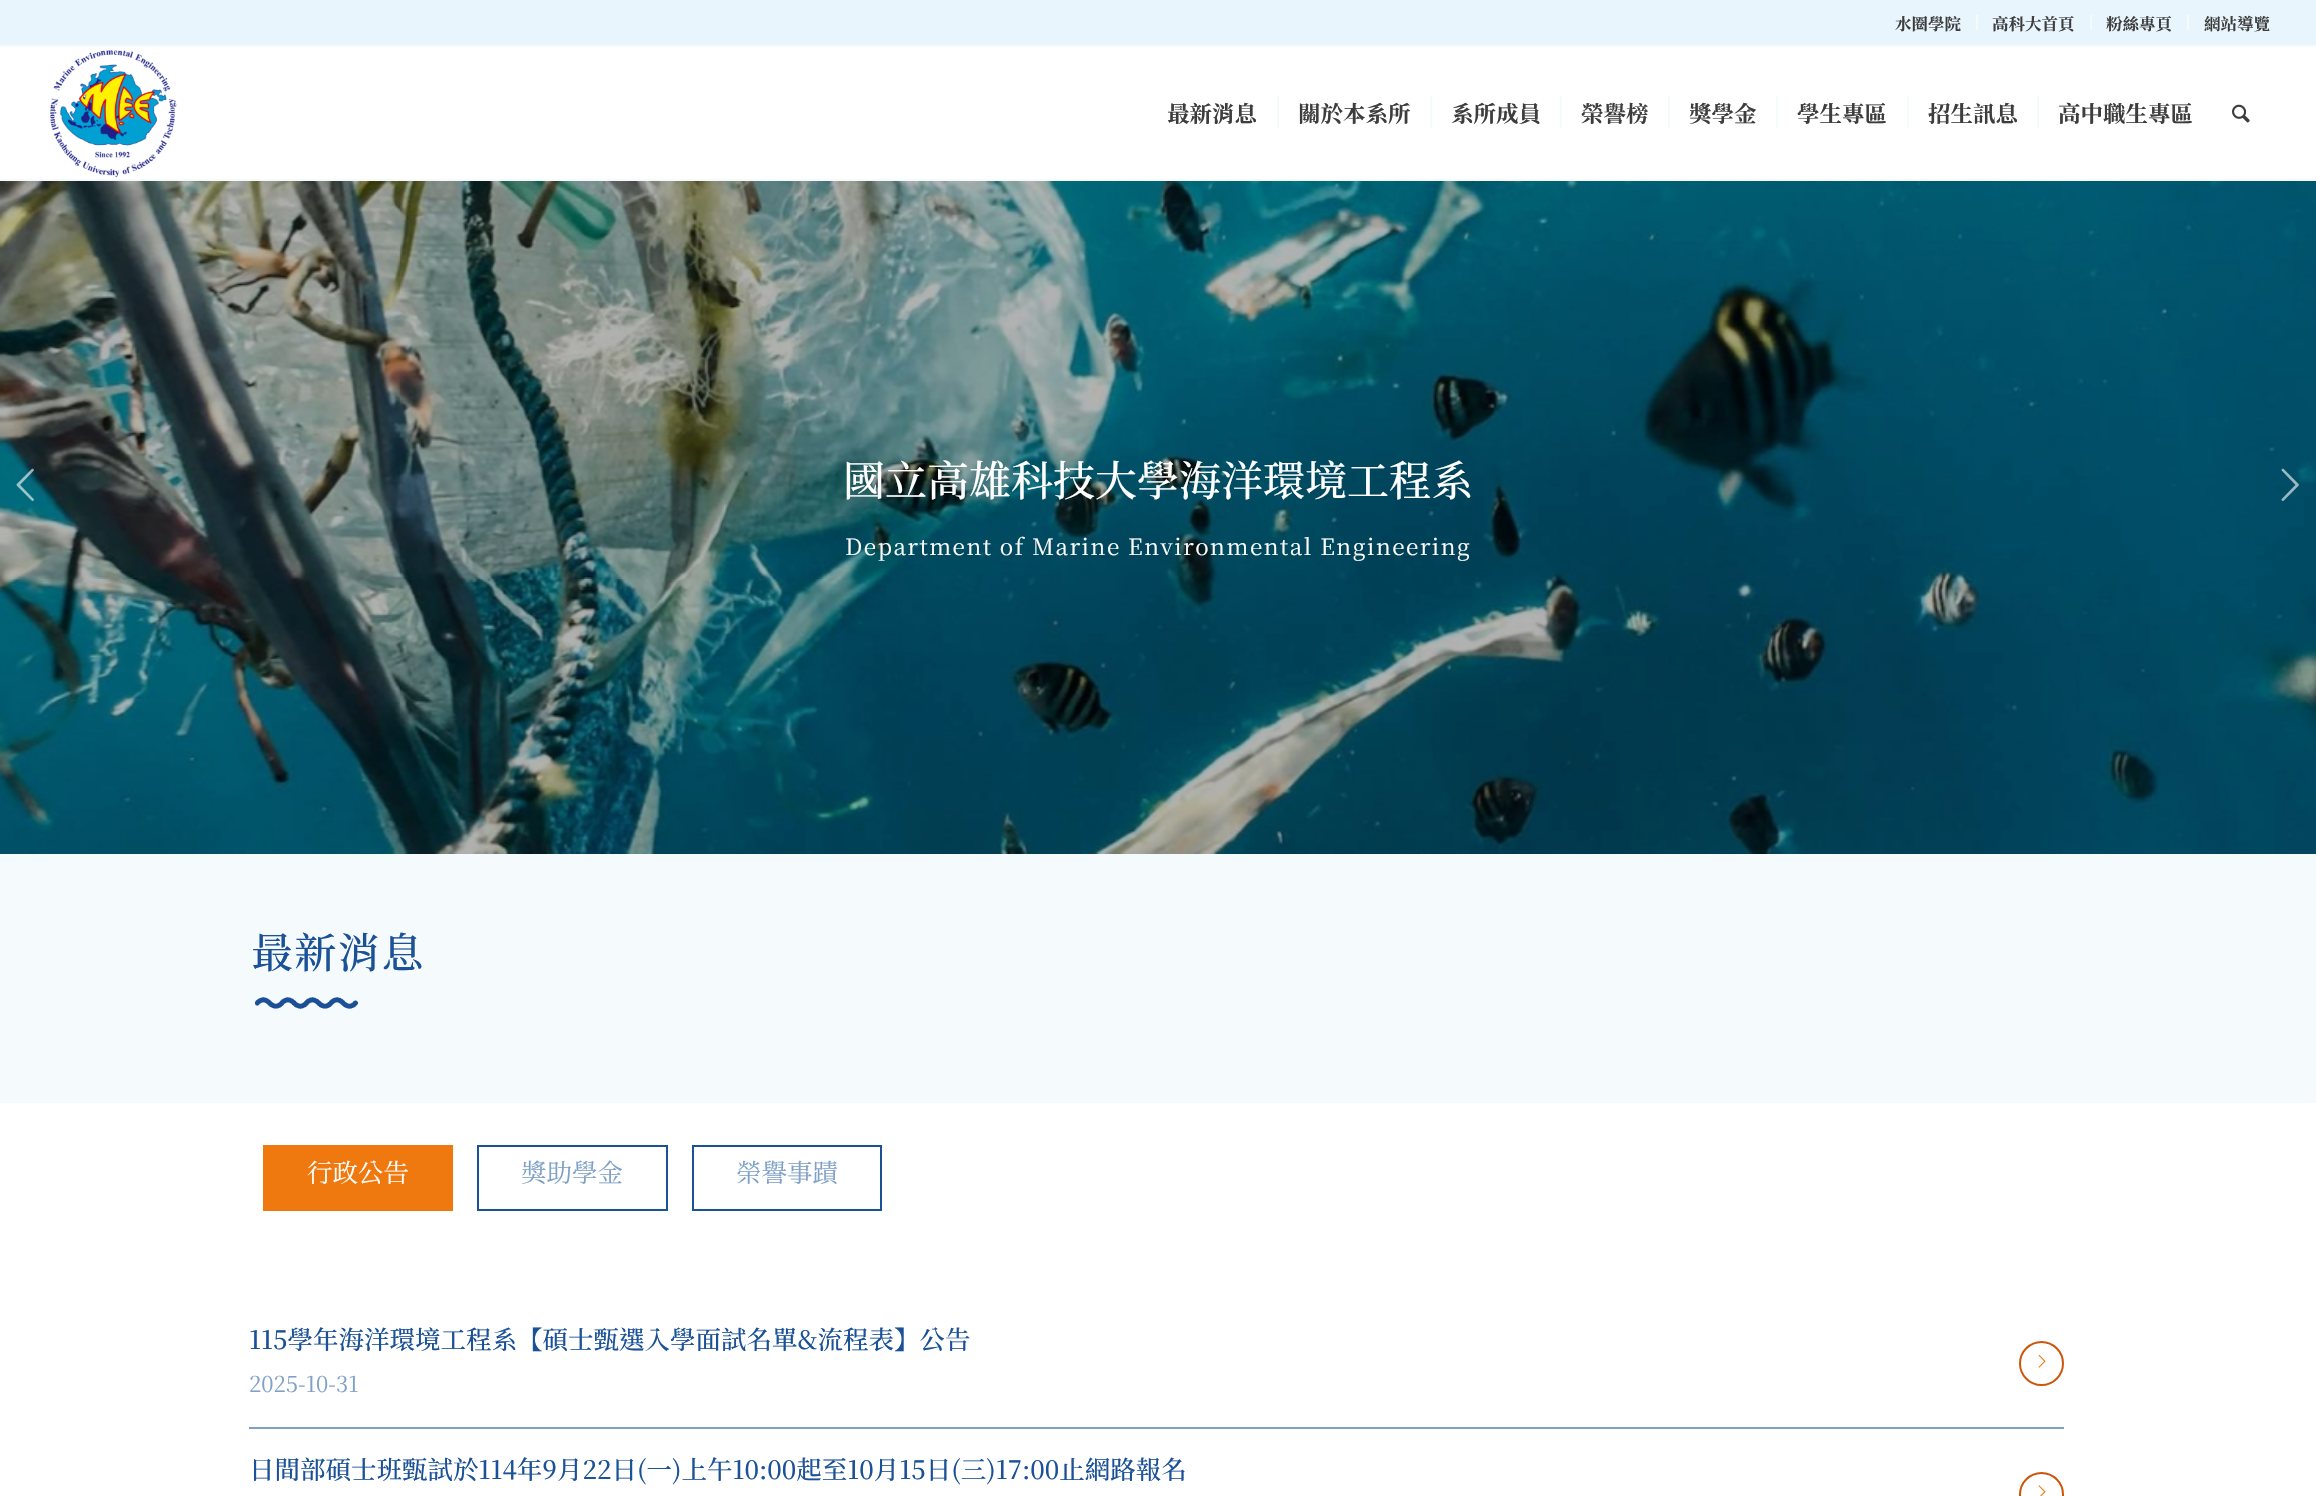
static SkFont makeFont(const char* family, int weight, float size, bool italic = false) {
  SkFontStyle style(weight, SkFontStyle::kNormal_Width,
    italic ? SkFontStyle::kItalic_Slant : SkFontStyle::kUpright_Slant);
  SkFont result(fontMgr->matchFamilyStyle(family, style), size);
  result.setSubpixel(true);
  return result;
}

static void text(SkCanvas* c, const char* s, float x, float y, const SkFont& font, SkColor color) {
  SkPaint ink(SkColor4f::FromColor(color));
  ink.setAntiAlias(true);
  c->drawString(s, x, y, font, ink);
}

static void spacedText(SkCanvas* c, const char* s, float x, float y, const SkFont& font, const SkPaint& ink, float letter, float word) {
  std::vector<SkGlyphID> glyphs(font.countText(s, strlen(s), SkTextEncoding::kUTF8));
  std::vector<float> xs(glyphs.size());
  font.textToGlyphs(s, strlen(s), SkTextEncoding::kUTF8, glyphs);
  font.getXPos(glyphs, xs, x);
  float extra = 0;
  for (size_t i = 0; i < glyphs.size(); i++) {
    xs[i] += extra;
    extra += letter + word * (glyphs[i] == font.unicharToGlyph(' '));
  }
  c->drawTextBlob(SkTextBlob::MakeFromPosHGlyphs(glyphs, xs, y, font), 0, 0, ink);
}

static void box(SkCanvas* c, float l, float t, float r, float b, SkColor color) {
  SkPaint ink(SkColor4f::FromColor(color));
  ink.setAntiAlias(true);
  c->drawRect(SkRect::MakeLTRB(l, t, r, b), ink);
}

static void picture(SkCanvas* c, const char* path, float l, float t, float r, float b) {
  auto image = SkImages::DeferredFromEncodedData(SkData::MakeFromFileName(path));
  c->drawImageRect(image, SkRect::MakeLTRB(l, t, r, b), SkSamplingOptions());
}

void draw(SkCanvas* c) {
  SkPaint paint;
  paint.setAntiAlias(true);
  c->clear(0xffffffff);
  box(c, 0, 0, 2316, 45, 0xffe8f5fc);
  box(c, 0, 45, 2316, 47, 0xfff5fafd);
  box(c, 1976, 15, 1978, 30, 0xfff5fafd);
  SkFont face1 = makeFont("Noto Serif TC", 700, 16.5f);
  text(c, "水圈學院", 1895, 30, face1, 0xff3d3d3d);
  box(c, 2090, 15, 2092, 30, 0xfff5fafd);
  text(c, "高科大首頁", 1992, 30, face1, 0xff3d3d3d);
  box(c, 2187, 15, 2189, 30, 0xfff5fafd);
  text(c, "粉絲專頁", 2106, 30, face1, 0xff3d3d3d);
  text(c, "網站導覽", 2204, 30, face1, 0xff3d3d3d);
  box(c, 0, 179, 2316, 181, 0xfff5fafd);
  picture(c, "img_01.png", 50, 50, 177, 178);
  SkFont face2 = makeFont("Noto Serif TC", 700, 22.5f);
  text(c, "最新消息", 1167, 122, face2, 0xff3d3d3d);
  text(c, "關於本系所", 1298, 122, face2, 0xff3d3d3d);
  box(c, 1277, 96, 1279, 128, 0xfff5fafd);
  text(c, "系所成員", 1451, 122, face2, 0xff3d3d3d);
  box(c, 1430, 96, 1432, 128, 0xfff5fafd);
  text(c, "榮譽榜", 1581, 122, face2, 0xff3d3d3d);
  box(c, 1560, 96, 1562, 128, 0xfff5fafd);
  text(c, "獎學金", 1689, 122, face2, 0xff3d3d3d);
  box(c, 1668, 96, 1670, 128, 0xfff5fafd);
  text(c, "學生專區", 1797, 122, face2, 0xff3d3d3d);
  box(c, 1776, 96, 1778, 128, 0xfff5fafd);
  text(c, "招生訊息", 1928, 122, face2, 0xff3d3d3d);
  box(c, 1907, 96, 1909, 128, 0xfff5fafd);
  text(c, "高中職生專區", 2058, 122, face2, 0xff3d3d3d);
  box(c, 2037, 96, 2039, 128, 0xfff5fafd);
  picture(c, "img_02.png", 2232, 104, 2250, 123);
  picture(c, "img_03.png", 0, 181, 2316, 854);
  SkFont face3 = makeFont("Noto Serif TC", 500, 42);
  text(c, "國立高雄科技大學海洋環境工程系", 843, 496, face3, 0xffffffff);
  SkFont face4 = makeFont("Noto Serif TC", 400, 22.5f);
  paint.setColor(0xffffffff);
  spacedText(c, "Department of Marine Environmental Engineering", 845, 555, face4, paint, 1.5f, 0);
  picture(c, "img_04.png", 16, 468, 34, 501);
  picture(c, "img_05.png", 2281, 468, 2299, 501);
  box(c, 0, 854, 2316, 1103, 0xfff5fafd);
  picture(c, "img_06.png", 255, 997, 358, 1009);
  paint.setColor(0xff1b5197);
  spacedText(c, "最新消息", 251, 968, face3, paint, 1.5f, 0);
  box(c, 263, 1145, 453, 1211, 0xffef780f);
  SkFont face5 = makeFont("Noto Serif TC", 400, 25.5f);
  text(c, "行政公告", 307, 1182, face5, 0xffffffff);
  paint.setStyle(SkPaint::kStroke_Style);
  paint.setStrokeWidth(2);
  c->drawRect(SkRect::MakeLTRB(478, 1146, 667, 1210), paint);
  text(c, "獎助學金", 521, 1182, face5, 0xff7fa1c7);
  c->drawRect(SkRect::MakeLTRB(693, 1146, 881, 1210), paint);
  text(c, "榮譽事蹟", 736, 1182, face5, 0xff7fa1c7);
  SkFont face6 = makeFont("Noto Serif TC", 500, 25.5f);
  text(c, "115學年度海洋環境工程系【碩士甄選入學面試名單&流程表】公告", 249, 1349, face6, 0xff1b5197);
  SkFont face7 = makeFont("Noto Serif TC", 400, 22);
  text(c, "2025-10-31", 249, 1392, face7, 0xff7fa1c7);
  paint.setColor(0xffcd560d);
  c->drawCircle(2041.5f, 1363.5f, 21.5f, paint);
  picture(c, "img_07.png", 2038, 1354, 2046, 1368);
  box(c, 249, 1427, 2064, 1429, 0xff7fa1c7);
  text(c, "日間部碩士班甄試於114年9月22日(一)上午10:00起至10月15日(三)17:00止網路報名", 249, 1479, face6, 0xff1b5197);
  c->drawCircle(2041.5f, 1494.5f, 21.5f, paint);
  picture(c, "img_08.png", 2038, 1485, 2046, 1496);
}
